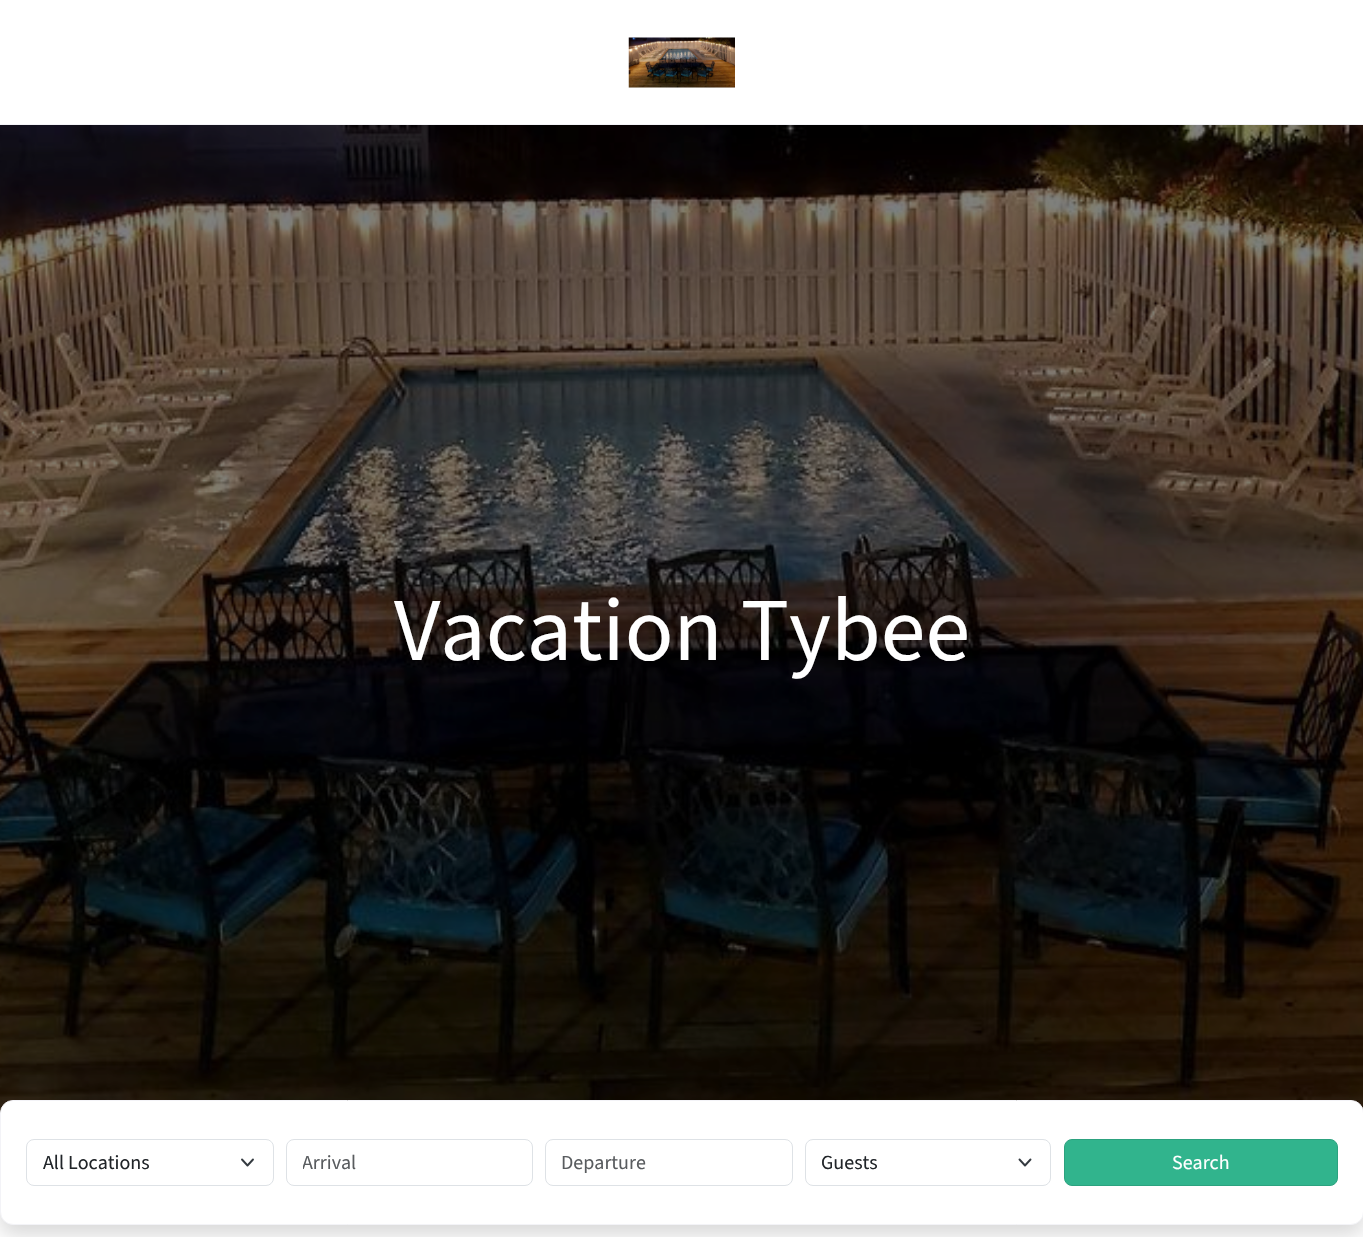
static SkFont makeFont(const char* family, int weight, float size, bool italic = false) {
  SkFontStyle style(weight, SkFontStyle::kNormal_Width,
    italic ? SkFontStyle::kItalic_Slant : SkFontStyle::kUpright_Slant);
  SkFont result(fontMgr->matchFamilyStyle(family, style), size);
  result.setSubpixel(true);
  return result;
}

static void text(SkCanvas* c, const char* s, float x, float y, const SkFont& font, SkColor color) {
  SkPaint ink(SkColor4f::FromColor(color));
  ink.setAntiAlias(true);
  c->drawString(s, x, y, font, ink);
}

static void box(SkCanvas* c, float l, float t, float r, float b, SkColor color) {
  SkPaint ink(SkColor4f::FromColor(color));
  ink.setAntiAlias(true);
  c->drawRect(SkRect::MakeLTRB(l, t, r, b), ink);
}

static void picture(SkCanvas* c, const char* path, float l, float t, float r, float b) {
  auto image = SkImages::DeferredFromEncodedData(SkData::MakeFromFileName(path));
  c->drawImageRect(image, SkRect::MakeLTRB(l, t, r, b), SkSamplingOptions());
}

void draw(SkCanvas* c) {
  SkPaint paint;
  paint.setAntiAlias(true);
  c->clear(0xffffffff);
  box(c, 0, 124, 1363, 125, 0xfff3f3f7);
  picture(c, "img_01.png", 628, 37, 735, 88);
  picture(c, "img_02.png", 0, 125, 1363, 1113);
  SkFont face1 = makeFont("Source Sans 3", 400, 90);
  text(c, "Vacation Tybee", 394, 660, face1, 0xffffffff);
  paint.setColor(0x26000000);
  paint.setMaskFilter(SkMaskFilter::MakeBlur(kNormal_SkBlurStyle, 10));
  c->drawRoundRect(SkRect::MakeLTRB(0, 1110, 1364, 1235), 13, 13, paint);
  paint.setMaskFilter(nullptr);
  paint.setColor(0xffffffff);
  c->drawRoundRect(SkRect::MakeLTRB(0.5f, 1100.5f, 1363.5f, 1224.5f), 12.5f, 12.5f, paint);
  paint.setStyle(SkPaint::kStroke_Style);
  paint.setStrokeWidth(1);
  paint.setColor(0xfff3f3f7);
  c->drawRoundRect(SkRect::MakeLTRB(0.5f, 1100.5f, 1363.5f, 1224.5f), 12.5f, 12.5f, paint);
  paint.setStrokeWidth(1.9f);
  paint.setStrokeCap(SkPaint::kRound_Cap);
  paint.setStrokeJoin(SkPaint::kRound_Join);
  paint.setColor(0xff343a40);
  c->drawPath(SkPathBuilder().moveTo(242, 1159.5f).lineTo(247.5f, 1165.5f).lineTo(253, 1159.5f).detach(), paint);
  paint.setStrokeWidth(1);
  paint.setStrokeCap(SkPaint::kButt_Cap);
  paint.setStrokeJoin(SkPaint::kMiter_Join);
  paint.setColor(0xffdee2e6);
  c->drawRoundRect(SkRect::MakeLTRB(26.5f, 1139.5f, 273.5f, 1185.5f), 7.5f, 7.5f, paint);
  SkFont face2 = makeFont("Source Sans 3", 400, 20);
  text(c, "All Locations", 43, 1169, face2, 0xff212529);
  c->drawRoundRect(SkRect::MakeLTRB(286.5f, 1139.5f, 532.5f, 1185.5f), 7.5f, 7.5f, paint);
  c->save();
  c->clipRect(SkRect::MakeLTRB(303, 1149, 516, 1176));
  text(c, "Arrival", 302, 1169, face2, 0xff595c5f);
  c->restore();
  c->drawRoundRect(SkRect::MakeLTRB(545.5f, 1139.5f, 792.5f, 1185.5f), 7.5f, 7.5f, paint);
  text(c, "Departure", 561, 1169, face2, 0xff595c5f);
  paint.setStrokeWidth(1.9f);
  paint.setStrokeCap(SkPaint::kRound_Cap);
  paint.setStrokeJoin(SkPaint::kRound_Join);
  paint.setColor(0xff343a40);
  c->drawPath(SkPathBuilder().moveTo(1019.5f, 1159.5f).lineTo(1025, 1165.5f).lineTo(1030.5f, 1159.5f).detach(), paint);
  paint.setStrokeWidth(1);
  paint.setStrokeCap(SkPaint::kButt_Cap);
  paint.setStrokeJoin(SkPaint::kMiter_Join);
  paint.setColor(0xffdee2e6);
  c->drawRoundRect(SkRect::MakeLTRB(805.5f, 1139.5f, 1050.5f, 1185.5f), 7.5f, 7.5f, paint);
  text(c, "Guests", 821, 1169, face2, 0xff212529);
  paint.setStyle(SkPaint::kFill_Style);
  paint.setColor(0xff31b48d);
  c->drawRoundRect(SkRect::MakeLTRB(1064.5f, 1139.5f, 1337.5f, 1185.5f), 7.5f, 7.5f, paint);
  paint.setStyle(SkPaint::kStroke_Style);
  paint.setColor(0xff2ca27f);
  c->drawRoundRect(SkRect::MakeLTRB(1064.5f, 1139.5f, 1337.5f, 1185.5f), 7.5f, 7.5f, paint);
  text(c, "Search", 1172, 1169, face2, 0xffffffff);
}
